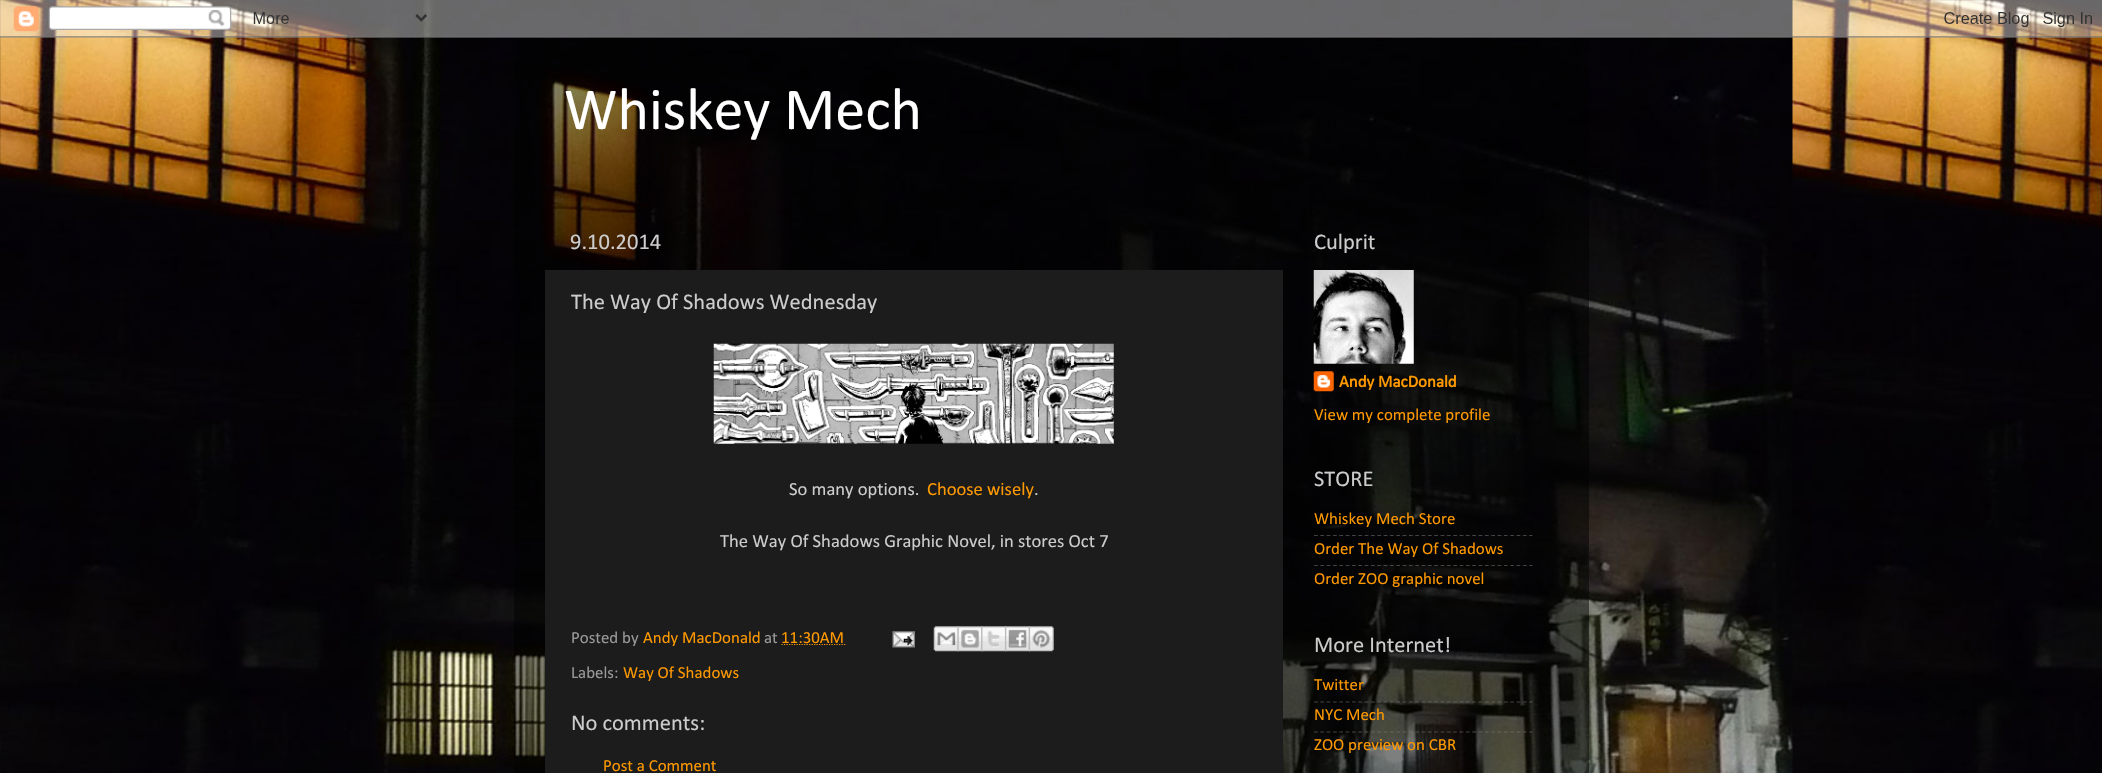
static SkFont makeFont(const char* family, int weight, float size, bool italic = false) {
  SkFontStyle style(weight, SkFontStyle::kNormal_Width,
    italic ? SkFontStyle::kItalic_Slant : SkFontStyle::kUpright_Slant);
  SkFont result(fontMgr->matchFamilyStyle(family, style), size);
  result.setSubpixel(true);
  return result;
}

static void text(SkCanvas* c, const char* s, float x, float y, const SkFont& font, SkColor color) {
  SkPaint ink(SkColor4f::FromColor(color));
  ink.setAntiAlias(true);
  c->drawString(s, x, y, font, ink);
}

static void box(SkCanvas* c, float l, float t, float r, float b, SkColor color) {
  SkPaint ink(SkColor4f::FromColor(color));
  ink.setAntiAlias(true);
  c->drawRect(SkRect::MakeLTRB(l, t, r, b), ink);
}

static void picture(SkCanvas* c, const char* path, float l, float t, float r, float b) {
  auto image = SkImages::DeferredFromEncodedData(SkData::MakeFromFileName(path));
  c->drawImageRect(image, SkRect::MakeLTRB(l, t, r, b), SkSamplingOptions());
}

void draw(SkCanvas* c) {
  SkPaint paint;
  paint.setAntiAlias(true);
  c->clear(0xffffffff);
  picture(c, "img_01.png", 0, 0, 2102, 773);
  picture(c, "img_02.png", 0, 0, 2102, 38);
  box(c, 514, 38, 1589, 773, 0x80000000);
  SkFont face1 = makeFont("Calibri", 400, 60);
  text(c, "Whiskey Mech", 564, 129, face1, 0xffffffff);
  SkFont face2 = makeFont("Calibri", 400, 22.5f);
  text(c, "9.10.2014", 570, 249, face2, 0xffcccccc);
  box(c, 545, 270, 1283, 773, 0xff1c1c1c);
  text(c, "The Way Of Shadows Wednesday", 571, 309, face2, 0xffcccccc);
  picture(c, "img_03.png", 713, 343, 1114, 444);
  SkFont face3 = makeFont("Calibri", 400, 18.6f);
  text(c, "So many options.", 789, 495, face3, 0xffcccccc);
  text(c, "Choose wisely", 927, 495, face3, 0xffff9900);
  text(c, ".", 1034, 495, face3, 0xffcccccc);
  text(c, "The Way Of Shadows Graphic Novel, in stores Oct 7", 720, 547, face3, 0xffcccccc);
  SkFont face4 = makeFont("Calibri", 400, 16.9f);
  text(c, "Posted by", 571, 643, face4, 0xff999999);
  text(c, "Andy MacDonald", 643, 643, face4, 0xffff9900);
  text(c, "at", 764, 643, face4, 0xff999999);
  paint.setStyle(SkPaint::kStroke_Style);
  paint.setStrokeWidth(1.2f);
  paint.setColor(0xffff9900);
  paint.setPathEffect(SkDashPathEffect::Make({{1.25f, 1.25f}}, 0));
  c->drawPath(SkPathBuilder().moveTo(781.5f, 644.5f).lineTo(846.5f, 644.5f).detach(), paint);
  paint.setPathEffect(nullptr);
  text(c, "11:30 AM", 781, 643, face4, 0xffff9900);
  picture(c, "img_04.png", 892, 631, 915, 648);
  picture(c, "img_05.png", 933, 626, 959, 652);
  picture(c, "img_06.png", 957, 626, 983, 652);
  picture(c, "img_07.png", 981, 626, 1007, 652);
  picture(c, "img_08.png", 1005, 626, 1030, 652);
  picture(c, "img_09.png", 1028, 626, 1054, 652);
  text(c, "Labels:", 571, 678, face4, 0xff999999);
  text(c, "Way Of Shadows", 623, 678, face4, 0xffff9900);
  text(c, "No comments:", 571, 730, face2, 0xffcccccc);
  text(c, "Post a Comment", 603, 771, face4, 0xffff9900);
  text(c, "Culprit", 1314, 249, face2, 0xffcccccc);
  picture(c, "img_10.png", 1313, 270, 1414, 364);
  picture(c, "img_11.png", 1313, 371, 1334, 392);
  SkFont face5 = makeFont("Calibri", 700, 16.9f);
  text(c, "Andy MacDonald", 1339, 387, face5, 0xffff9900);
  text(c, "View my complete profile", 1314, 420, face4, 0xffff9900);
  text(c, "STORE", 1314, 486, face2, 0xffcccccc);
  text(c, "Whiskey Mech Store", 1314, 524, face4, 0xffff9900);
  paint.setColor(0x80808080);
  paint.setPathEffect(SkDashPathEffect::Make({{3.75f, 2.58f}}, 0));
  c->drawPath(SkPathBuilder().moveTo(1314, 535.5f).lineTo(1532.5f, 535.5f).detach(), paint);
  paint.setPathEffect(nullptr);
  text(c, "Order The Way Of Shadows", 1314, 554, face4, 0xffff9900);
  paint.setPathEffect(SkDashPathEffect::Make({{3.75f, 2.58f}}, 0));
  c->drawPath(SkPathBuilder().moveTo(1314, 565.5f).lineTo(1532.5f, 565.5f).detach(), paint);
  paint.setPathEffect(nullptr);
  text(c, "Order ZOO graphic novel", 1314, 584, face4, 0xffff9900);
  text(c, "More Internet!", 1314, 652, face2, 0xffcccccc);
  text(c, "Twitter", 1314, 690, face4, 0xffff9900);
  paint.setPathEffect(SkDashPathEffect::Make({{3.75f, 2.58f}}, 0));
  c->drawPath(SkPathBuilder().moveTo(1314, 702).lineTo(1532.5f, 702).detach(), paint);
  paint.setPathEffect(nullptr);
  text(c, "NYC Mech", 1314, 720, face4, 0xffff9900);
  paint.setPathEffect(SkDashPathEffect::Make({{3.75f, 2.58f}}, 0));
  c->drawPath(SkPathBuilder().moveTo(1314, 732).lineTo(1532.5f, 732).detach(), paint);
  paint.setPathEffect(nullptr);
  text(c, "ZOO preview on CBR", 1314, 750, face4, 0xffff9900);
}
